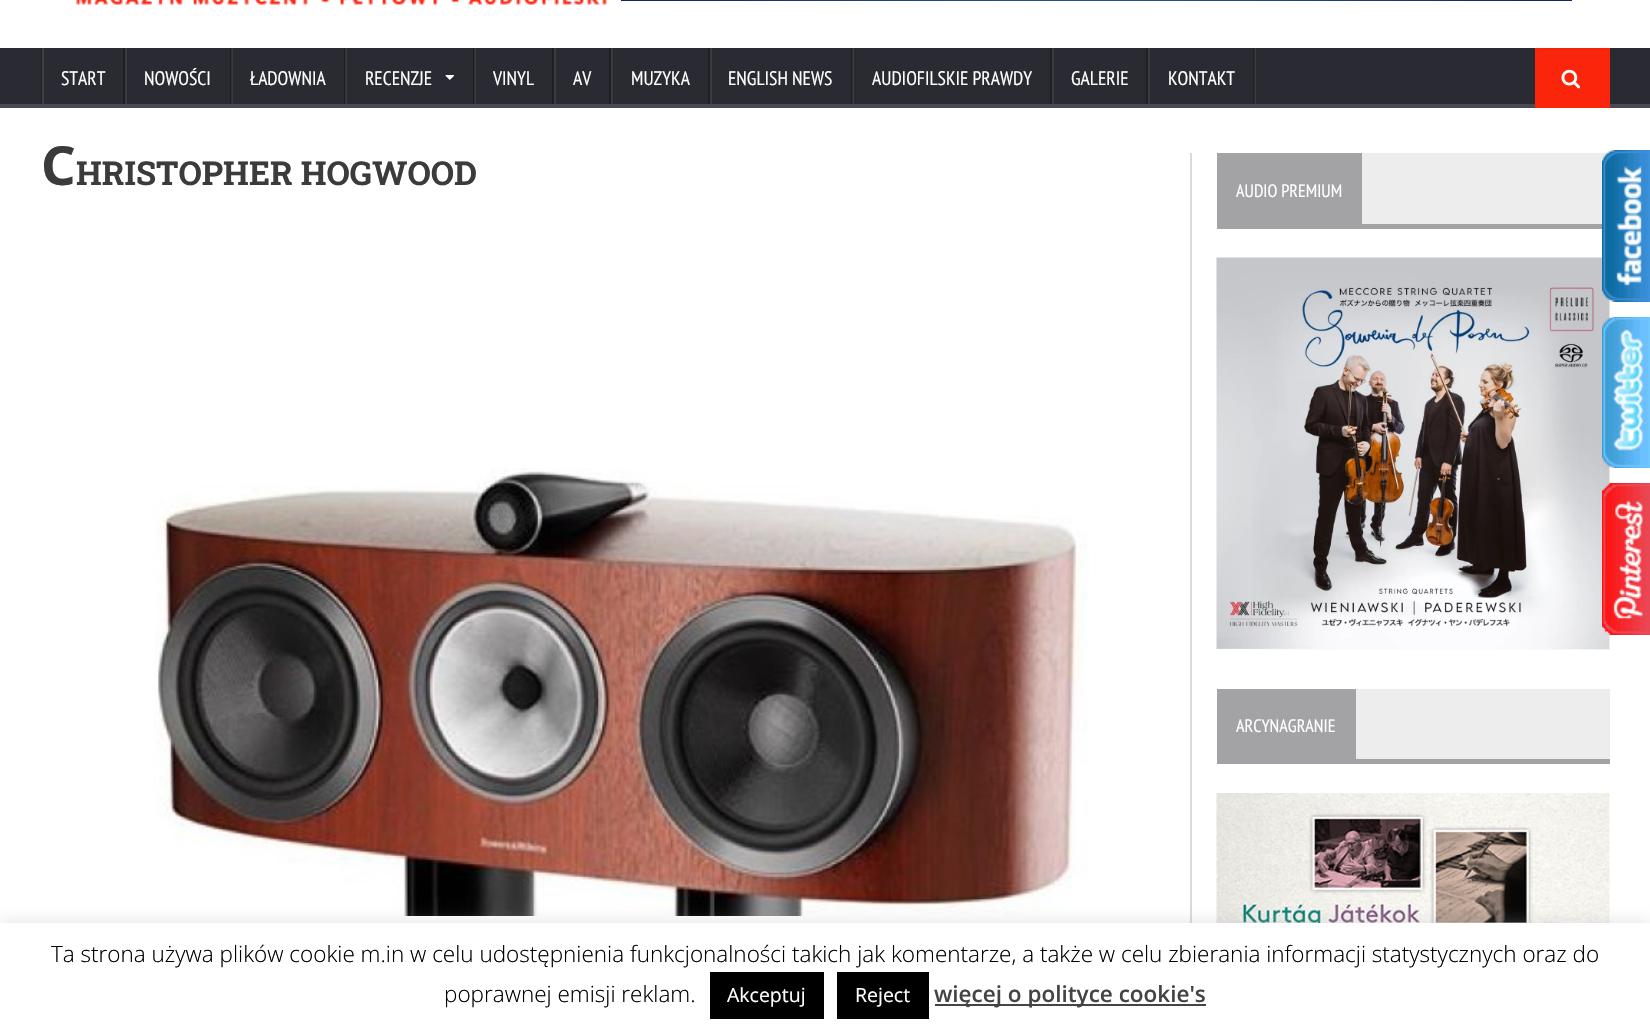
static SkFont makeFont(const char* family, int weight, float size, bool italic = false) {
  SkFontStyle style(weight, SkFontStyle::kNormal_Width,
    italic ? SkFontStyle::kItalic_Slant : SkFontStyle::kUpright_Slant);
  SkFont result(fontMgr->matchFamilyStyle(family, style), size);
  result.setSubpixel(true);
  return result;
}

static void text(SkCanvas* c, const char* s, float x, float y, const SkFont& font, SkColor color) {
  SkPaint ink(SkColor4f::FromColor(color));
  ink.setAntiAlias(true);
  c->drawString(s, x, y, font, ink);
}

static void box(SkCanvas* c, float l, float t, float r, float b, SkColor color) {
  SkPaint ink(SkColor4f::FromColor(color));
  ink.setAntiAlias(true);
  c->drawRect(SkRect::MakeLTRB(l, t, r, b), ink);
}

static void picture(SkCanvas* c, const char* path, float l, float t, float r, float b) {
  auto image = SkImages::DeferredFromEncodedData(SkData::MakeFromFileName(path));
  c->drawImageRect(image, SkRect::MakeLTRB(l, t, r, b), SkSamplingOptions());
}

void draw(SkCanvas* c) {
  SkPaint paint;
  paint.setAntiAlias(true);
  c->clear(0xffffffff);
  picture(c, "img_01.png", 75, 0, 607, 5);
  picture(c, "img_02.png", 621, 0, 1572, 1);
  box(c, 0, 48, 1650, 104, 0xff292a32);
  box(c, 0, 104, 1650, 108, 0xff494a51);
  box(c, 853, 48, 854, 104, 0xff3a3b42);
  box(c, 475, 48, 476, 104, 0xff3a3b42);
  box(c, 346, 48, 347, 104, 0xff3a3b42);
  box(c, 232, 48, 233, 104, 0xff3a3b42);
  paint.setColor(0xff1f2026);
  c->drawPath(SkPathBuilder().moveTo(41, 48).lineTo(41, 104).lineTo(123, 104).lineTo(42, 104).lineTo(42, 48).close().detach(), paint);
  box(c, 123, 48, 125, 104, 0xff1f2026);
  box(c, 42, 48, 44, 104, 0xff3e3f46);
  SkFont face1 = makeFont("PT Sans Narrow", 400, 19.5f);
  text(c, "START", 61, 85, face1, 0xffffffff);
  box(c, 230, 48, 231, 104, 0xff1f2026);
  box(c, 231, 48, 232, 104, 0xff313237);
  box(c, 125, 48, 127, 104, 0xff3a3b42);
  text(c, "NOWOŚCI", 144, 85, face1, 0xffffffff);
  box(c, 344, 48, 345, 104, 0xff1f2026);
  box(c, 345, 48, 346, 104, 0xff313237);
  text(c, "ŁADOWNIA", 250, 85, face1, 0xffffffff);
  box(c, 473, 48, 474, 104, 0xff1f2026);
  box(c, 474, 48, 475, 104, 0xff313237);
  text(c, "RECENZJE", 365, 85, face1, 0xffffffff);
  picture(c, "img_03.png", 445, 75, 454, 80);
  box(c, 552, 48, 554, 104, 0xff1f2026);
  text(c, "VINYL", 493, 85, face1, 0xffffffff);
  box(c, 609, 48, 611, 104, 0xff1f2026);
  box(c, 554, 48, 556, 104, 0xff3a3b42);
  text(c, "AV", 573, 85, face1, 0xffffffff);
  box(c, 708, 48, 710, 104, 0xff1f2026);
  box(c, 611, 48, 613, 104, 0xff3a3b42);
  text(c, "MUZYKA", 631, 85, face1, 0xffffffff);
  box(c, 851, 48, 852, 104, 0xff1f2026);
  box(c, 852, 48, 853, 104, 0xff313237);
  box(c, 710, 48, 712, 104, 0xff3a3b42);
  text(c, "ENGLISH NEWS", 728, 85, face1, 0xffffffff);
  box(c, 1050, 48, 1052, 104, 0xff1f2026);
  text(c, "AUDIOFILSKIE PRAWDY", 872, 85, face1, 0xffffffff);
  box(c, 1146, 48, 1148, 104, 0xff1f2026);
  box(c, 1052, 48, 1054, 104, 0xff3a3b42);
  text(c, "GALERIE", 1071, 85, face1, 0xffffffff);
  paint.setColor(0xff3a3b42);
  c->drawPath(SkPathBuilder().moveTo(1149, 104).lineTo(1256, 104).lineTo(1256, 48).lineTo(1254, 48).lineTo(1254, 104).close().detach(), paint);
  box(c, 1253, 48, 1255, 104, 0x40000000);
  box(c, 1148, 48, 1150, 104, 0xff3a3b42);
  text(c, "KONTAKT", 1168, 85, face1, 0xffffffff);
  box(c, 1535, 48, 1610, 108, 0xfffb250b);
  paint.setColor(0x08000000);
  c->drawPath(SkPathBuilder().moveTo(1538, 51).lineTo(1606, 51).cubicTo(1608, 51, 1610, 52, 1610, 54).cubicTo(1610, 45, 1605, 48, 1596, 48).lineTo(1550, 48).cubicTo(1546, 48, 1535, 45, 1535, 52).close().detach(), paint);
  picture(c, "img_04.png", 1561, 69, 1580, 89);
  SkFont face2 = makeFont("Noto Sans", 700, 54);
  text(c, "C", 41, 185, face2, 0xff3b3b3b);
  SkFont face3 = makeFont("Roboto Slab", 700, 33);
  text(c, "HRISTOPHER HOGWOOD", 76, 185, face3, 0xff3b3b3b);
  picture(c, "img_05.png", 154, 468, 1089, 916);
  box(c, 1190, 153, 1192, 923, 0xffd9d9d9);
  box(c, 1362, 153, 1610, 224, 0xffededed);
  box(c, 1217, 153, 1362, 224, 0xffa3a3a6);
  SkFont face4 = makeFont("PT Sans Narrow", 400, 18);
  text(c, "AUDIO PREMIUM", 1236, 197, face4, 0xffffffff);
  box(c, 1217, 224, 1610, 229, 0xffa3a3a6);
  picture(c, "img_06.png", 1216, 257, 1610, 650);
  box(c, 1356, 689, 1610, 759, 0xffededed);
  box(c, 1217, 689, 1356, 759, 0xffa3a3a6);
  text(c, "ARCYNAGRANIE", 1236, 732, face4, 0xffffffff);
  box(c, 1217, 759, 1610, 764, 0xffa3a3a6);
  picture(c, "img_07.png", 1216, 793, 1610, 923);
  picture(c, "img_08.png", 1602, 150, 1650, 302);
  picture(c, "img_09.png", 1602, 317, 1650, 468);
  picture(c, "img_10.png", 1602, 483, 1650, 635);
  paint.setColor(0x4dacabab);
  paint.setMaskFilter(SkMaskFilter::MakeBlur(kNormal_SkBlurStyle, 7.5f));
  c->drawRect(SkRect::MakeLTRB(0, 921, 1650, 1035), paint);
  paint.setMaskFilter(nullptr);
  box(c, 0, 923, 1650, 1036, 0xffffffff);
  SkFont face5 = makeFont("Open Sans", 300, 22.5f);
  text(c, "Ta strona używa plików cookie m.in w celu udostępnienia funkcjonalności takich jak komentarze, a także w celu zbierania informacji statystycznych oraz do", 51, 962, face5, 0xff000000);
  text(c, "poprawnej emisji reklam.", 444, 1002, face5, 0xff000000);
  box(c, 710, 972, 824, 1019, 0xff000000);
  SkFont face6 = makeFont("Open Sans", 400, 19.5f);
  text(c, "Akceptuj", 727, 1002, face6, 0xffffffff);
  box(c, 837, 972, 929, 1019, 0xff000000);
  text(c, "Reject", 855, 1002, face6, 0xffffffff);
  box(c, 935, 1004, 1206, 1006, 0xff444444);
  SkFont face7 = makeFont("Open Sans", 600, 22.5f);
  text(c, "więcej o polityce cookie's", 934, 1002, face7, 0xff444444);
}
